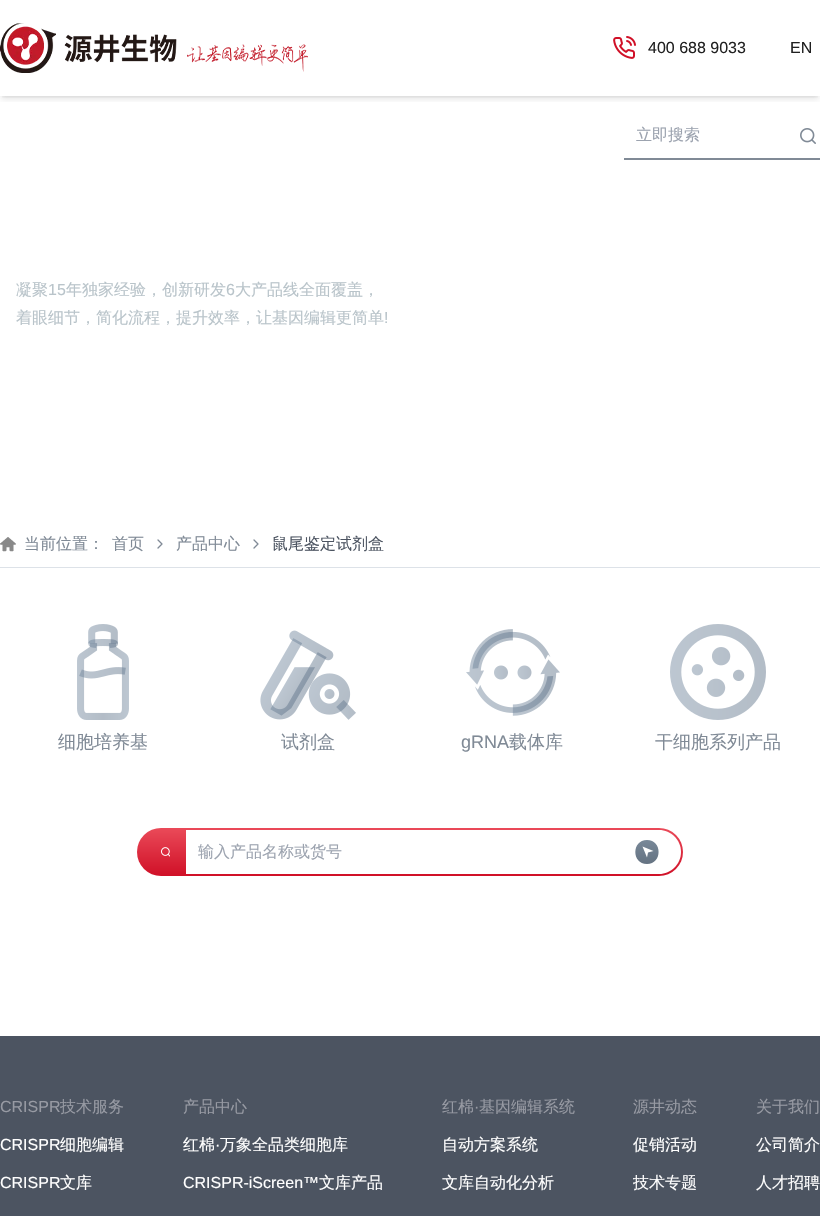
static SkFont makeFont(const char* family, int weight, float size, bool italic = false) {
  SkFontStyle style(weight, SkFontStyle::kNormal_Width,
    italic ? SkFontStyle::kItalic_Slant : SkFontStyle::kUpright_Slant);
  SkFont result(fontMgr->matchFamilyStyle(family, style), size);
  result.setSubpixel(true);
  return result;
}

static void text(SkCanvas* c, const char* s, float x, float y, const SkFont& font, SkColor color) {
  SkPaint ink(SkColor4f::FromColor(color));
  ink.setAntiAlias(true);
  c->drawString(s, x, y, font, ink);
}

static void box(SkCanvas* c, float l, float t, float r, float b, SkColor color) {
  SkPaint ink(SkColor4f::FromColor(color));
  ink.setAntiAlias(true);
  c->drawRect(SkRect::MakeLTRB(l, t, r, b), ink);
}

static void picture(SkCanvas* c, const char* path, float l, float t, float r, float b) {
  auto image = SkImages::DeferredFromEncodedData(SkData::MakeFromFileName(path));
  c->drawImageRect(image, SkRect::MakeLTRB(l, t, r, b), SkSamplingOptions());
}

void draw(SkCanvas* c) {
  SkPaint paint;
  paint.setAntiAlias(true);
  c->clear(0xffffffff);
  c->save();
  c->clipRect(SkRect::MakeLTRB(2, 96, 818, 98));
  paint.setColor(0x1a000000);
  paint.setMaskFilter(SkMaskFilter::MakeBlur(kNormal_SkBlurStyle, 2));
  c->drawRect(SkRect::MakeLTRB(2, 4, 818, 96), paint);
  paint.setMaskFilter(nullptr);
  c->restore();
  c->save();
  c->clipRect(SkRect::MakeLTRB(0, 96, 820, 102));
  paint.setMaskFilter(SkMaskFilter::MakeBlur(kNormal_SkBlurStyle, 3));
  c->drawRect(SkRect::MakeLTRB(1, 5, 819, 99), paint);
  paint.setMaskFilter(nullptr);
  c->restore();
  picture(c, "img_01.png", 0, 23, 308, 73);
  picture(c, "img_02.png", 613, 36, 636, 59);
  SkFont face1 = makeFont("Liberation Sans", 400, 16);
  text(c, "400 688 9033", 648, 53, face1, 0xff202020);
  text(c, "EN", 790, 53, face1, 0xff202020);
  box(c, 624, 158, 820, 160, 0xff808a96);
  SkFont face2 = makeFont("WenQuanYi Zen Hei", 500, 16);
  text(c, "立即搜索", 636, 140, face2, 0xff9ca3af);
  picture(c, "img_03.png", 800, 128, 816, 144);
  text(c, "凝聚", 16, 295, face2, 0xffb9c4ca);
  text(c, "15", 48, 295, face1, 0xffb9c4ca);
  text(c, "年独家经验，创新研发", 66, 295, face2, 0xffb9c4ca);
  text(c, "6", 226, 295, face1, 0xffb9c4ca);
  text(c, "大产品线全面覆盖，", 235, 295, face2, 0xffb9c4ca);
  text(c, "着眼细节，简化流程，提升效率，让基因编辑更简单", 16, 323, face2, 0xffb9c4ca);
  text(c, "!", 384, 323, face1, 0xffb9c4ca);
  box(c, 0, 567, 820, 568, 0xffdde2e8);
  picture(c, "img_04.png", 0, 537, 16, 552);
  text(c, "当前位置：", 24, 549, face2, 0xff808a96);
  text(c, "首页", 112, 549, face2, 0xff808a96);
  paint.setStyle(SkPaint::kStroke_Style);
  paint.setStrokeWidth(1.3f);
  paint.setStrokeCap(SkPaint::kRound_Cap);
  paint.setStrokeJoin(SkPaint::kRound_Join);
  paint.setColor(0xff808a96);
  c->drawPath(SkPathBuilder().moveTo(158, 548).lineTo(162, 544).lineTo(158, 540).detach(), paint);
  text(c, "产品中心", 176, 549, face2, 0xff808a96);
  c->drawPath(SkPathBuilder().moveTo(254, 548).lineTo(258, 544).lineTo(254, 540).detach(), paint);
  text(c, "鼠尾鉴定试剂盒", 272, 549, face2, 0xff4c5461);
  picture(c, "img_05.png", 77, 624, 129, 720);
  SkFont face3 = makeFont("WenQuanYi Zen Hei", 500, 18);
  text(c, "细胞培养基", 58, 748, face3, 0xff808a96);
  picture(c, "img_06.png", 260, 630, 356, 720);
  text(c, "试剂盒", 281, 748, face3, 0xff808a96);
  picture(c, "img_07.png", 466, 629, 560, 716);
  SkFont face4 = makeFont("Liberation Sans", 400, 18);
  text(c, "gRNA", 461, 748, face4, 0xff808a96);
  text(c, "载体库", 509, 748, face3, 0xff808a96);
  picture(c, "img_08.png", 670, 624, 766, 720);
  text(c, "干细胞系列产品", 655, 748, face3, 0xff808a96);
  paint.setStyle(SkPaint::kFill_Style);
  {
    const SkColor colors[] = {0xffd01027, 0xffea4a59};
    const float stops[] = {0, 1};
    const SkPoint ends[] = {{410, 876}, {410, 828}};
    paint.setShader(SkGradientShader::MakeLinear(ends, colors, stops, 2, SkTileMode::kClamp));
    paint.setAlpha(255);
  }
  c->drawRoundRect(SkRect::MakeLTRB(137, 828, 683, 876), 24, 24, paint);
  picture(c, "img_09.png", 161, 847, 170, 857);
  paint.setShader(nullptr);
  paint.setColor(0xffffffff);
  c->drawPath(SkPathBuilder().moveTo(186, 830).lineTo(659, 830).cubicTo(671, 830, 681, 840, 681, 852).cubicTo(681, 864, 671, 874, 659, 874).lineTo(186, 874).close().detach(), paint);
  text(c, "输入产品名称或货号", 198, 857, face2, 0xff9ca3af);
  {
    const SkColor colors[] = {0xff788898, 0xff657382};
    const float stops[] = {0, 1};
    const SkPoint ends[] = {{647, 840}, {647, 864}};
    paint.setShader(SkGradientShader::MakeLinear(ends, colors, stops, 2, SkTileMode::kClamp));
    paint.setAlpha(255);
  }
  c->drawPath(SkPathBuilder().moveTo(647, 840).cubicTo(662.5f, 840, 662.5f, 864, 647, 864).cubicTo(631.5f, 864, 631.5f, 840, 647, 840).close().moveTo(647, 857.5f).lineTo(648, 852.5f).lineTo(653.5f, 851).lineTo(642.5f, 846.5f).close().detach(), paint);
  box(c, 0, 1036, 820, 1216, 0xff4c5461);
  text(c, "CRISPR", 0, 1112, face1, 0xff979aa3);
  text(c, "技术服务", 60, 1112, face2, 0xff979aa3);
  text(c, "CRISPR", 0, 1150, face1, 0xffffffff);
  text(c, "细胞编辑", 60, 1150, face2, 0xffffffff);
  text(c, "CRISPR", 0, 1188, face1, 0xffffffff);
  text(c, "文库", 60, 1188, face2, 0xffffffff);
  text(c, "产品中心", 183, 1112, face2, 0xff979aa3);
  text(c, "红棉", 183, 1150, face2, 0xffffffff);
  text(c, "·", 215, 1150, face1, 0xffffffff);
  text(c, "万象全品类细胞库", 220, 1150, face2, 0xffffffff);
  text(c, "CRISPR-iScreen™", 183, 1188, face1, 0xffffffff);
  text(c, "文库产品", 319, 1188, face2, 0xffffffff);
  text(c, "红棉", 442, 1112, face2, 0xff979aa3);
  text(c, "·", 474, 1112, face1, 0xff979aa3);
  text(c, "基因编辑系统", 479, 1112, face2, 0xff979aa3);
  text(c, "自动方案系统", 442, 1150, face2, 0xffffffff);
  text(c, "文库自动化分析", 442, 1188, face2, 0xffffffff);
  text(c, "源井动态", 633, 1112, face2, 0xff979aa3);
  text(c, "促销活动", 633, 1150, face2, 0xffffffff);
  text(c, "技术专题", 633, 1188, face2, 0xffffffff);
  text(c, "关于我们", 756, 1112, face2, 0xff979aa3);
  text(c, "公司简介", 756, 1150, face2, 0xffffffff);
  text(c, "人才招聘", 756, 1188, face2, 0xffffffff);
}
